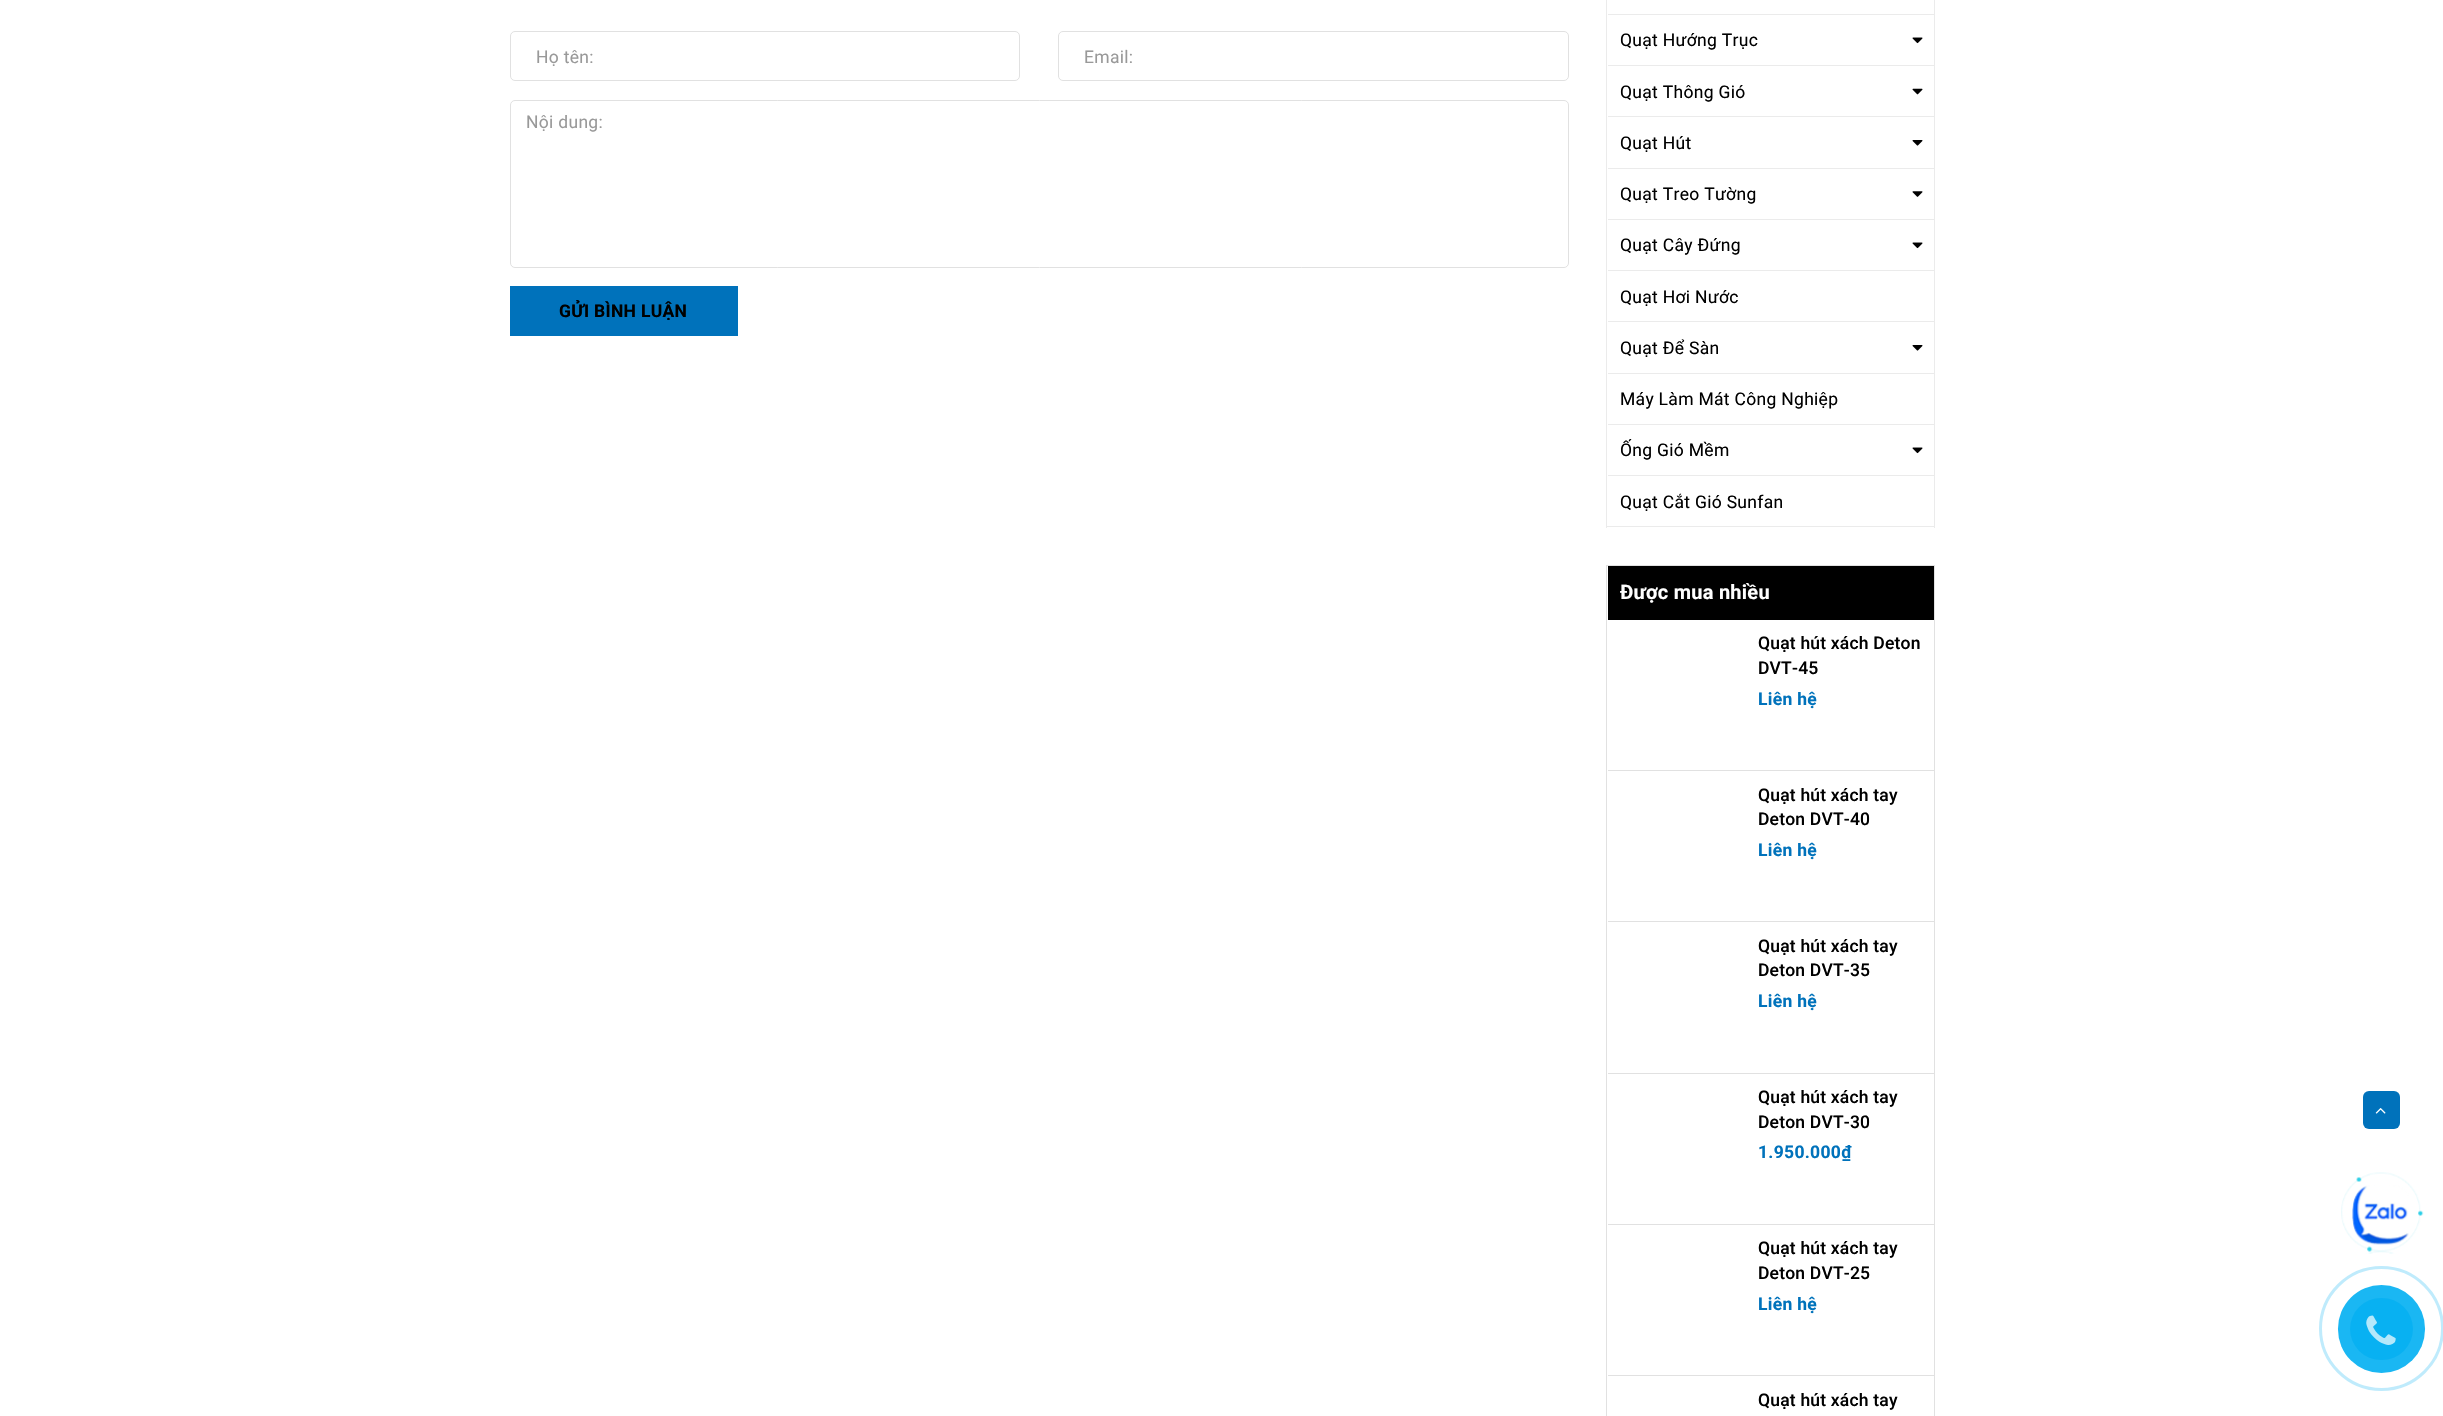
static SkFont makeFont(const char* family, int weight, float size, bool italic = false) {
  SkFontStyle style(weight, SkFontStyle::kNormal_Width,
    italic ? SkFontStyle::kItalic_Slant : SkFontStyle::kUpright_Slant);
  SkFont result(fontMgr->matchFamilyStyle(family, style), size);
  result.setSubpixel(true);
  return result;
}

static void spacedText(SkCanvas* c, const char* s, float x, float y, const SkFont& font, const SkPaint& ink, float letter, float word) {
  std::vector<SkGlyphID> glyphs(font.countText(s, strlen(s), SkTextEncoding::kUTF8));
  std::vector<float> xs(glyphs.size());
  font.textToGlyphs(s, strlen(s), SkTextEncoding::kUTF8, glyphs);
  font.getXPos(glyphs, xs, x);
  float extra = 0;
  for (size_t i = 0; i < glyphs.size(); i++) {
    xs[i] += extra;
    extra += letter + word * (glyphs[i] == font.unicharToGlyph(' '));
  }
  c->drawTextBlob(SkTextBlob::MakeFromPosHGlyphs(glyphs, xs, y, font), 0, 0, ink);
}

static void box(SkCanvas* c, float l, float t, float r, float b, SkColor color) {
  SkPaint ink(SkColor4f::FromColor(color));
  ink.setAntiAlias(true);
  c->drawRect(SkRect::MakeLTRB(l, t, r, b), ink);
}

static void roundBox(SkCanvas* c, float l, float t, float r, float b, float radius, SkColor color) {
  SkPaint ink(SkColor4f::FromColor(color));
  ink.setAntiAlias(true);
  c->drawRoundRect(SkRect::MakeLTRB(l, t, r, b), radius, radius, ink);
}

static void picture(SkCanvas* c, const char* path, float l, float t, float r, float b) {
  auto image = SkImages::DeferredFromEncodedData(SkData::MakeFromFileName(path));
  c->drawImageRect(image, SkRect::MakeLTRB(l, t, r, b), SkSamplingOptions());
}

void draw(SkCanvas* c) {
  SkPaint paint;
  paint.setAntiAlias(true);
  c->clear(0xffffffff);
  paint.setStyle(SkPaint::kStroke_Style);
  paint.setStrokeWidth(1);
  paint.setColor(0xffe1e1e1);
  c->drawRoundRect(SkRect::MakeLTRB(510.5f, 31.5f, 1019.5f, 80.5f), 4.5f, 4.5f, paint);
  SkFont face1 = makeFont("Roboto", 400, 17.5f);
  paint.setStyle(SkPaint::kFill_Style);
  paint.setColor(0xff999999);
  spacedText(c, "Họ tên:", 536, 63, face1, paint, 0.3f, 0);
  paint.setStyle(SkPaint::kStroke_Style);
  paint.setColor(0xffe1e1e1);
  c->drawRoundRect(SkRect::MakeLTRB(1058.5f, 31.5f, 1568.5f, 80.5f), 4.5f, 4.5f, paint);
  paint.setStyle(SkPaint::kFill_Style);
  paint.setColor(0xff999999);
  spacedText(c, "Email:", 1084, 63, face1, paint, 0.3f, 0);
  paint.setStyle(SkPaint::kStroke_Style);
  paint.setColor(0xffe1e1e1);
  c->drawRoundRect(SkRect::MakeLTRB(510.5f, 100.5f, 1568.5f, 267.5f), 4.5f, 4.5f, paint);
  paint.setStyle(SkPaint::kFill_Style);
  paint.setColor(0xff999999);
  spacedText(c, "Nội dung:", 526, 128, face1, paint, 0.3f, 0);
  box(c, 510, 286, 738, 336, 0xff0072bb);
  SkFont face2 = makeFont("Roboto", 700, 17.5f);
  paint.setColor(0xff000000);
  spacedText(c, "GỬI BÌNH LUẬN", 559, 317, face2, paint, 0.3f, 0);
  box(c, 1934, 0, 1935, 528, 0xffebebeb);
  box(c, 1606, 526, 1935, 527, 0xffebebeb);
  box(c, 1606, 0, 1607, 528, 0xffebebeb);
  box(c, 1608, 14, 1934, 15, 0xffebebeb);
  box(c, 1608, 65, 1934, 66, 0xffebebeb);
  spacedText(c, "Quạt Hướng Trục", 1620, 46, face1, paint, 0.3f, 0);
  picture(c, "img_01.png", 1912, 37, 1923, 44);
  box(c, 1608, 116, 1934, 117, 0xffebebeb);
  spacedText(c, "Quạt Thông Gió", 1620, 98, face1, paint, 0.3f, 0);
  picture(c, "img_02.png", 1912, 88, 1923, 95);
  box(c, 1608, 168, 1934, 169, 0xffebebeb);
  spacedText(c, "Quạt Hút", 1620, 149, face1, paint, 0.3f, 0);
  picture(c, "img_03.png", 1912, 140, 1923, 146);
  box(c, 1608, 219, 1934, 220, 0xffebebeb);
  spacedText(c, "Quạt Treo Tường", 1620, 200, face1, paint, 0.3f, 0);
  picture(c, "img_04.png", 1912, 191, 1923, 197);
  box(c, 1608, 270, 1934, 271, 0xffebebeb);
  spacedText(c, "Quạt Cây Đứng", 1620, 251, face1, paint, 0.3f, 0);
  picture(c, "img_01.png", 1912, 242, 1923, 249);
  box(c, 1608, 321, 1934, 322, 0xffebebeb);
  spacedText(c, "Quạt Hơi Nước", 1620, 303, face1, paint, 0.3f, 0);
  box(c, 1608, 373, 1934, 374, 0xffebebeb);
  spacedText(c, "Quạt Để Sàn", 1620, 354, face1, paint, 0.3f, 0);
  picture(c, "img_03.png", 1912, 345, 1923, 351);
  box(c, 1608, 424, 1934, 425, 0xffebebeb);
  spacedText(c, "Máy Làm Mát Công Nghiệp", 1620, 405, face1, paint, 0.3f, 0);
  box(c, 1608, 475, 1934, 476, 0xffebebeb);
  spacedText(c, "Ống Gió Mềm", 1620, 456, face1, paint, 0.3f, 0);
  picture(c, "img_01.png", 1912, 447, 1923, 454);
  spacedText(c, "Quạt Cắt Gió Sunfan", 1620, 508, face1, paint, 0.3f, 0);
  paint.setStyle(SkPaint::kStroke_Style);
  paint.setColor(0xffe1e1e1);
  c->drawRect(SkRect::MakeLTRB(1606.5f, 565.5f, 1934.5f, 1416.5f), paint);
  box(c, 1608, 566, 1934, 620, 0xff000000);
  SkFont face3 = makeFont("Roboto", 700, 20);
  paint.setStyle(SkPaint::kFill_Style);
  paint.setColor(0xffffffff);
  spacedText(c, "Được mua nhiều", 1620, 599, face3, paint, 0.25f, 0);
  box(c, 1608, 770, 1934, 771, 0xffe1e1e1);
  SkFont face4 = makeFont("Roboto", 500, 17.5f);
  paint.setColor(0xff000000);
  spacedText(c, "Quạt hút xách Deton", 1758, 649, face4, paint, 0.2f, 0);
  spacedText(c, "DVT-45", 1758, 674, face4, paint, 0.2f, 0);
  paint.setColor(0xff0072bb);
  spacedText(c, "Liên hệ", 1758, 705, face2, paint, 0.3f, 0);
  box(c, 1608, 921, 1934, 922, 0xffe1e1e1);
  paint.setColor(0xff000000);
  spacedText(c, "Quạt hút xách tay", 1758, 801, face4, paint, 0.2f, 0);
  spacedText(c, "Deton DVT-40", 1758, 825, face4, paint, 0.2f, 0);
  paint.setColor(0xff0072bb);
  spacedText(c, "Liên hệ", 1758, 856, face2, paint, 0.3f, 0);
  box(c, 1608, 1073, 1934, 1074, 0xffe1e1e1);
  paint.setColor(0xff000000);
  spacedText(c, "Quạt hút xách tay", 1758, 952, face4, paint, 0.2f, 0);
  spacedText(c, "Deton DVT-35", 1758, 976, face4, paint, 0.2f, 0);
  paint.setColor(0xff0072bb);
  spacedText(c, "Liên hệ", 1758, 1007, face2, paint, 0.3f, 0);
  box(c, 1608, 1224, 1934, 1225, 0xffe1e1e1);
  paint.setColor(0xff000000);
  spacedText(c, "Quạt hút xách tay", 1758, 1103, face4, paint, 0.2f, 0);
  spacedText(c, "Deton DVT-30", 1758, 1128, face4, paint, 0.2f, 0);
  paint.setColor(0xff0072bb);
  spacedText(c, "1.950.000₫", 1758, 1158, face2, paint, 0.3f, 0);
  box(c, 1608, 1375, 1934, 1376, 0xffe1e1e1);
  paint.setColor(0xff000000);
  spacedText(c, "Quạt hút xách tay", 1758, 1254, face4, paint, 0.2f, 0);
  spacedText(c, "Deton DVT-25", 1758, 1279, face4, paint, 0.2f, 0);
  paint.setColor(0xff0072bb);
  spacedText(c, "Liên hệ", 1758, 1310, face2, paint, 0.3f, 0);
  paint.setColor(0xff000000);
  spacedText(c, "Quạt hút xách tay", 1758, 1406, face4, paint, 0.2f, 0);
  roundBox(c, 2363, 1091, 2400, 1129, 6, 0xff0072bb);
  picture(c, "img_05.png", 2375, 1108, 2386, 1114);
  picture(c, "img_06.png", 2341, 1172, 2424, 1254);
  picture(c, "img_07.png", 2352, 1185, 2409, 1245);
  paint.setStyle(SkPaint::kStroke_Style);
  paint.setStrokeWidth(3);
  paint.setColor(0xffbfebfc);
  c->drawCircle(2381.5f, 1328.5f, 61, paint);
  roundBox(c, 2338, 1285, 2425, 1373, 43.5f, 0xff1ab7f3);
  roundBox(c, 2350, 1298, 2413, 1360, 31, 0xff08b1f2);
  picture(c, "img_08.png", 2366, 1315, 2396, 1345);
}
